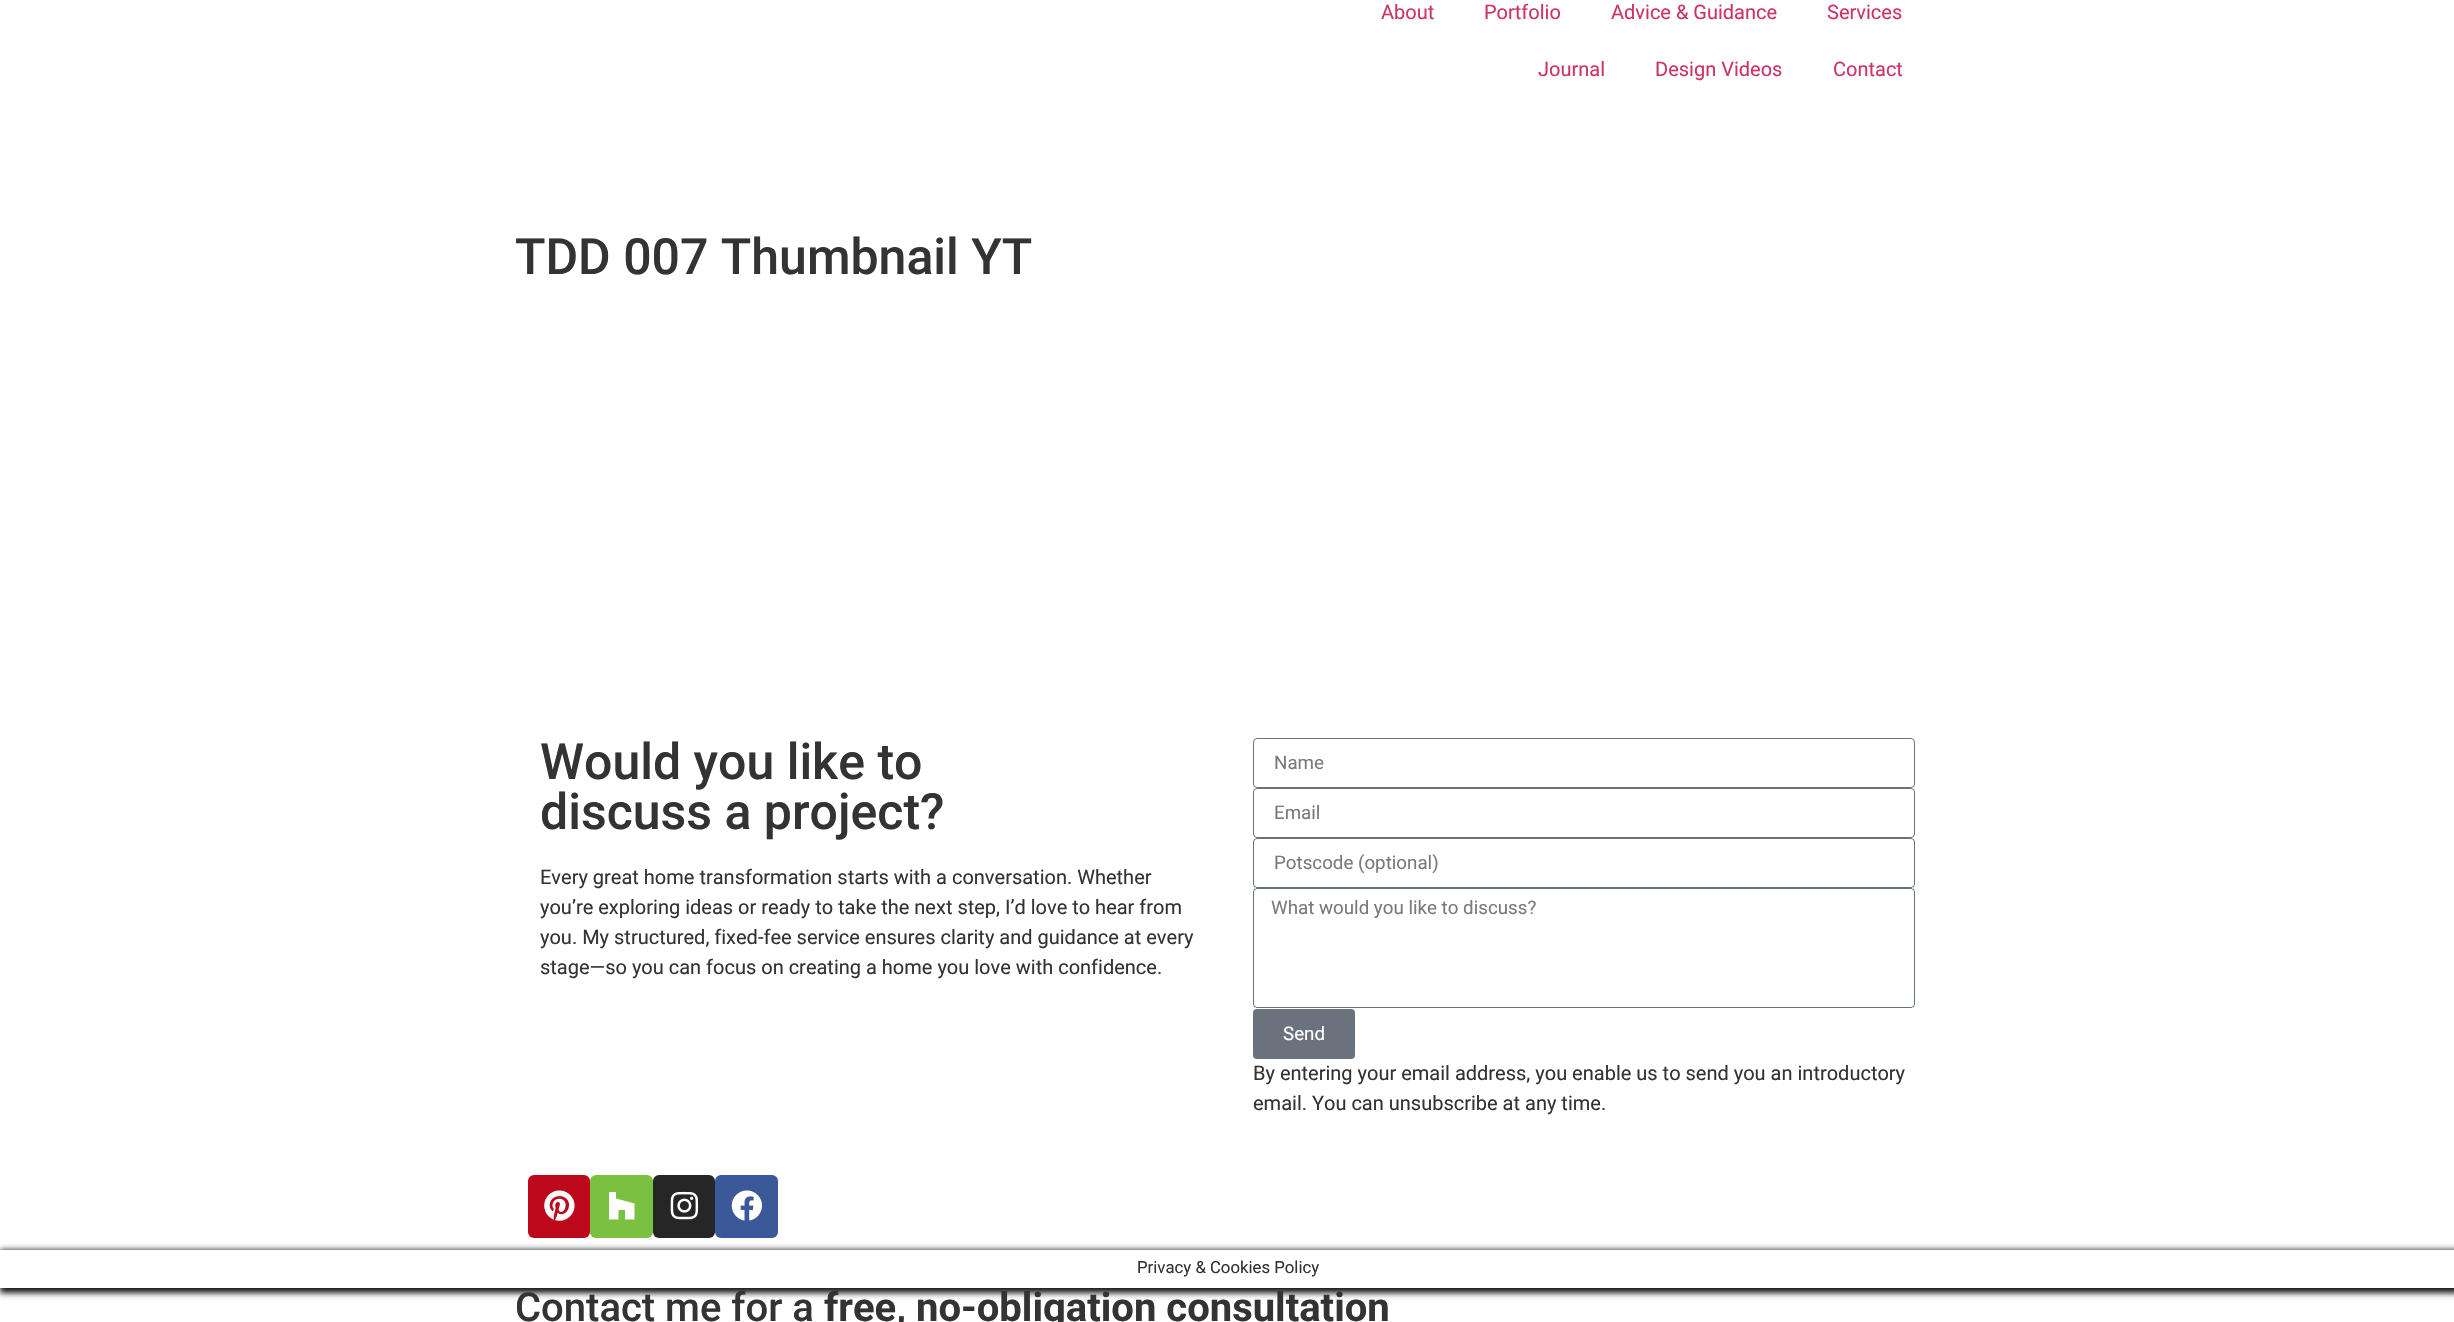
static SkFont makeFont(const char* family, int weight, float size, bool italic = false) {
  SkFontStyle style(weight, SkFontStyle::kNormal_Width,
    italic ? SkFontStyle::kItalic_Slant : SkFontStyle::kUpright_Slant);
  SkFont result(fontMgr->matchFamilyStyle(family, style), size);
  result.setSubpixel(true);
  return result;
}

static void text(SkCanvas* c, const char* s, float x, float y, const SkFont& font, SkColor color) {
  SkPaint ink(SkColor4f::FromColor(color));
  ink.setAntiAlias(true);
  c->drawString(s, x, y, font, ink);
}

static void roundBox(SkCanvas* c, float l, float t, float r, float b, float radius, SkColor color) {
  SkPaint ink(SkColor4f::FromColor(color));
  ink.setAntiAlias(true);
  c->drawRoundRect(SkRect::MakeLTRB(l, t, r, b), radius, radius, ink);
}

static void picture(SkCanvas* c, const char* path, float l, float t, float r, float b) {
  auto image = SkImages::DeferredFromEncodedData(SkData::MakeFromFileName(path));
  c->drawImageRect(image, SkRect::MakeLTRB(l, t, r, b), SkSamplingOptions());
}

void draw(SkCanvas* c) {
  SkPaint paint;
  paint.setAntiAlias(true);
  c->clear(0xffffffff);
  SkFont face1 = makeFont("Roboto", 400, 20);
  text(c, "About", 1381, 19, face1, 0xffcc3366);
  text(c, "Portfolio", 1484, 19, face1, 0xffcc3366);
  text(c, "Advice & Guidance", 1611, 19, face1, 0xffcc3366);
  text(c, "Services", 1827, 19, face1, 0xffcc3366);
  text(c, "Journal", 1538, 76, face1, 0xffcc3366);
  text(c, "Design Videos", 1655, 76, face1, 0xffcc3366);
  text(c, "Contact", 1833, 76, face1, 0xffcc3366);
  SkFont face2 = makeFont("Roboto", 500, 50);
  text(c, "TDD 007 Thumbnail YT", 515, 274, face2, 0xff333333);
  text(c, "Would you like to", 540, 779, face2, 0xff333333);
  text(c, "discuss a project?", 540, 829, face2, 0xff333333);
  text(c, "Every great home transformation starts with a conversation. Whether", 540, 884, face1, 0xff333333);
  text(c, "you’re exploring ideas or ready to take the next step, I’d love to hear from", 540, 914, face1, 0xff333333);
  text(c, "you. My structured, fixed-fee service ensures clarity and guidance at every", 540, 944, face1, 0xff333333);
  text(c, "stage—so you can focus on creating a home you love with confidence.", 540, 974, face1, 0xff333333);
  paint.setStyle(SkPaint::kStroke_Style);
  paint.setStrokeWidth(1);
  paint.setColor(0xff69727d);
  c->drawRoundRect(SkRect::MakeLTRB(1253.5f, 738.5f, 1914.5f, 787.5f), 3.5f, 3.5f, paint);
  SkFont face3 = makeFont("Roboto", 400, 18.75f);
  text(c, "Name", 1274, 769, face3, 0xff797a7c);
  c->drawRoundRect(SkRect::MakeLTRB(1253.5f, 788.5f, 1914.5f, 837.5f), 3.5f, 3.5f, paint);
  text(c, "Email", 1274, 819, face3, 0xff797a7c);
  c->drawRoundRect(SkRect::MakeLTRB(1253.5f, 838.5f, 1914.5f, 887.5f), 3.5f, 3.5f, paint);
  text(c, "Potscode (optional)", 1274, 869, face3, 0xff797a7c);
  c->drawRoundRect(SkRect::MakeLTRB(1253.5f, 888.5f, 1914.5f, 1007.5f), 3.5f, 3.5f, paint);
  text(c, "What would you like to discuss?", 1271, 914, face3, 0xff797a7c);
  roundBox(c, 1253, 1009, 1355, 1059, 4, 0xff69727d);
  text(c, "Send", 1283, 1040, face3, 0xffffffff);
  text(c, "By entering your email address, you enable us to send you an introductory", 1253, 1080, face1, 0xff333333);
  text(c, "email. You can unsubscribe at any time.", 1253, 1110, face1, 0xff333333);
  roundBox(c, 528, 1175, 590, 1238, 6, 0xffbd081c);
  picture(c, "img_01.png", 544, 1190, 575, 1221);
  roundBox(c, 590, 1175, 653, 1238, 6, 0xff7ac142);
  paint.setStyle(SkPaint::kFill_Style);
  paint.setColor(0xffffffff);
  c->drawPath(SkPathBuilder().moveTo(625, 1210).lineTo(618.5f, 1210).lineTo(618.5f, 1219.5f).lineTo(609, 1219.5f).lineTo(609, 1192).lineTo(616, 1192).lineTo(616, 1198.5f).lineTo(634.5f, 1203.5f).lineTo(634.5f, 1219.5f).lineTo(625, 1219.5f).close().detach(), paint);
  roundBox(c, 653, 1175, 715, 1238, 6, 0xff262626);
  picture(c, "img_02.png", 670, 1191, 699, 1220);
  roundBox(c, 715, 1175, 778, 1238, 6, 0xff3b5998);
  picture(c, "img_03.png", 731, 1190, 762, 1221);
  c->save();
  c->clipPath(SkPathBuilder(SkPathFillType::kEvenOdd).moveTo(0, 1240).lineTo(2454, 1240).lineTo(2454, 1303).lineTo(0, 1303).close().moveTo(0, 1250).lineTo(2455, 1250).lineTo(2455, 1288).lineTo(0, 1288).close().detach(), true);
  paint.setColor(0xff161616);
  paint.setMaskFilter(SkMaskFilter::MakeBlur(kNormal_SkBlurStyle, 3));
  c->drawRect(SkRect::MakeLTRB(0, 1250, 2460, 1293), paint);
  paint.setMaskFilter(nullptr);
  c->restore();
  SkFont face4 = makeFont("Roboto", 400, 16.75f);
  text(c, "Privacy & Cookies Policy", 1137, 1273, face4, 0xff333333);
  SkFont face5 = makeFont("Roboto", 500, 40);
  text(c, "Contact me for a", 515, 1321, face5, 0xff333333);
  SkFont face6 = makeFont("Roboto", 700, 40);
  text(c, "free, no-obligation consultation", 824, 1321, face6, 0xff333333);
}
